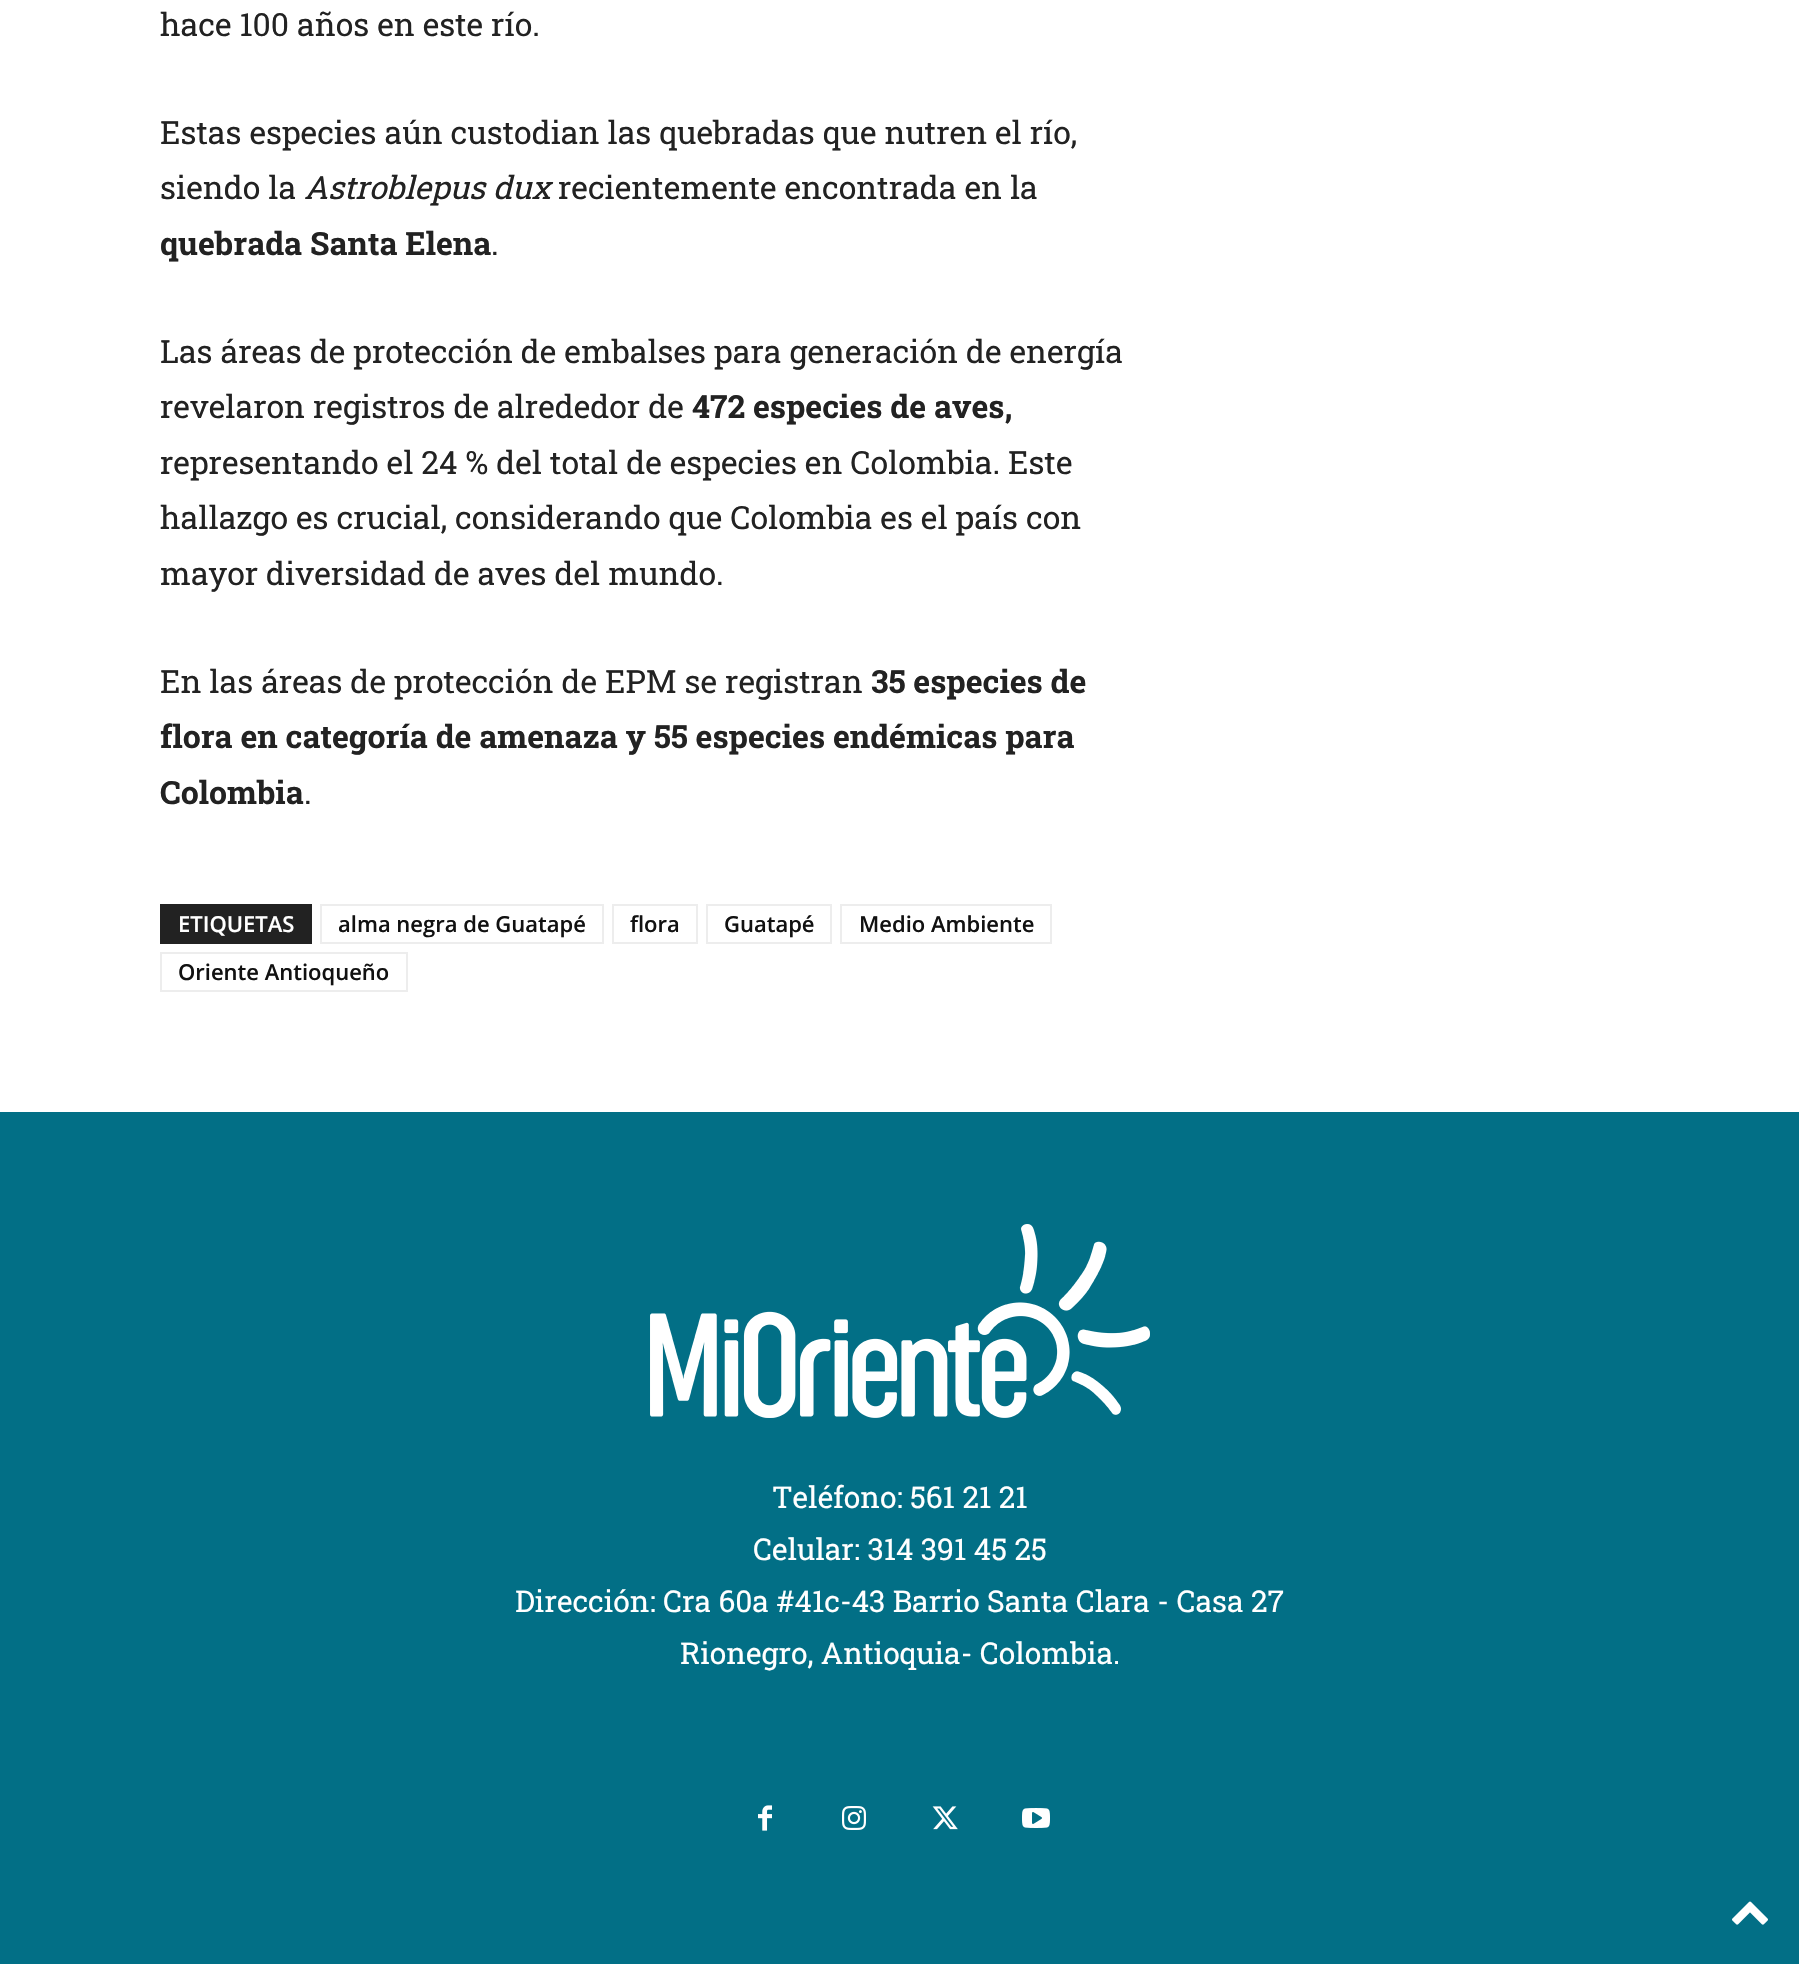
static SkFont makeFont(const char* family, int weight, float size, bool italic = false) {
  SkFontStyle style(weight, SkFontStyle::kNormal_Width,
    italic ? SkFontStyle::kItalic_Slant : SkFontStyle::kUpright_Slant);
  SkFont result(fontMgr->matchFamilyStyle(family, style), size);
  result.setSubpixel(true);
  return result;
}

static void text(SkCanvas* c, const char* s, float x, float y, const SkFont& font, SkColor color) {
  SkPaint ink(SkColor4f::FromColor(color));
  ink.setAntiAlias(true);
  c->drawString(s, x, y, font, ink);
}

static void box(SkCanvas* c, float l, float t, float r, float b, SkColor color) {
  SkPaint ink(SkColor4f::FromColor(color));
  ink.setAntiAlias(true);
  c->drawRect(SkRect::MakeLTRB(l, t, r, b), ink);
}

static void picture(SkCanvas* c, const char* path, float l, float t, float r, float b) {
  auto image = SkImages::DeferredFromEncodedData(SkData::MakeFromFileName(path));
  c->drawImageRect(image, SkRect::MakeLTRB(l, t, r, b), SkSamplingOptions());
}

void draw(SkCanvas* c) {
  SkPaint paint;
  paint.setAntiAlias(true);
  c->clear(0xffffffff);
  SkFont face1 = makeFont("Roboto Slab", 400, 32);
  text(c, "hace 100 años en este río.", 160, 36, face1, 0xff222222);
  text(c, "Estas especies aún custodian las quebradas que nutren el río,", 160, 144, face1, 0xff222222);
  text(c, "siendo la", 160, 199, face1, 0xff222222);
  SkFont face2 = makeFont("Roboto Slab", 400, 32, true);
  text(c, "Astroblepus dux", 304, 199, face2, 0xff222222);
  text(c, "recientemente encontrada en la", 558, 199, face1, 0xff222222);
  SkFont face3 = makeFont("Roboto Slab", 700, 32);
  text(c, "quebrada Santa Elena", 160, 255, face3, 0xff222222);
  text(c, ".", 491, 255, face1, 0xff222222);
  text(c, "Las áreas de protección de embalses para generación de energía", 160, 363, face1, 0xff222222);
  text(c, "revelaron registros de alrededor de", 160, 418, face1, 0xff222222);
  text(c, "472 especies de aves,", 692, 418, face3, 0xff222222);
  text(c, "representando el 24 % del total de especies en Colombia. Este", 160, 474, face1, 0xff222222);
  text(c, "hallazgo es crucial, considerando que Colombia es el país con", 160, 529, face1, 0xff222222);
  text(c, "mayor diversidad de aves del mundo.", 160, 585, face1, 0xff222222);
  text(c, "En las áreas de protección de EPM se registran", 160, 693, face1, 0xff222222);
  text(c, "35 especies de", 871, 693, face3, 0xff222222);
  text(c, "flora en categoría de amenaza y 55 especies endémicas para", 160, 748, face3, 0xff222222);
  text(c, "Colombia", 160, 804, face3, 0xff222222);
  text(c, ".", 304, 804, face1, 0xff222222);
  box(c, 160, 904, 312, 944, 0xff222222);
  SkFont face4 = makeFont("Open Sans", 600, 22);
  text(c, "ETIQUETAS", 178, 932, face4, 0xffffffff);
  paint.setStyle(SkPaint::kStroke_Style);
  paint.setStrokeWidth(2);
  paint.setColor(0xffededed);
  c->drawRect(SkRect::MakeLTRB(321, 905, 603, 943), paint);
  text(c, "alma negra de Guatapé", 338, 932, face4, 0xff111111);
  c->drawRect(SkRect::MakeLTRB(613, 905, 697, 943), paint);
  text(c, "flora", 630, 932, face4, 0xff111111);
  c->drawRect(SkRect::MakeLTRB(707, 905, 831, 943), paint);
  text(c, "Guatapé", 724, 932, face4, 0xff111111);
  c->drawRect(SkRect::MakeLTRB(841, 905, 1051, 943), paint);
  text(c, "Medio Ambiente", 859, 932, face4, 0xff111111);
  c->drawRect(SkRect::MakeLTRB(161, 953, 407, 991), paint);
  text(c, "Oriente Antioqueño", 178, 980, face4, 0xff111111);
  box(c, 0, 1112, 1799, 1964, 0xff026f86);
  picture(c, "img_01.png", 650, 1224, 1150, 1418);
  SkFont face5 = makeFont("Roboto Slab", 400, 30);
  text(c, "Teléfono: 561 21 21", 772, 1508, face5, 0xffffffff);
  text(c, "Celular: 314 391 45 25", 753, 1560, face5, 0xffffffff);
  text(c, "Dirección: Cra 60a #41c-43 Barrio Santa Clara - Casa 27", 515, 1612, face5, 0xffffffff);
  text(c, "Rionegro, Antioquia- Colombia.", 680, 1664, face5, 0xffffffff);
  picture(c, "img_02.png", 758, 1805, 772, 1831);
  picture(c, "img_03.png", 842, 1806, 866, 1830);
  picture(c, "img_04.png", 932, 1806, 958, 1830);
  picture(c, "img_05.png", 1022, 1808, 1050, 1828);
  picture(c, "img_06.png", 1732, 1901, 1768, 1925);
}
